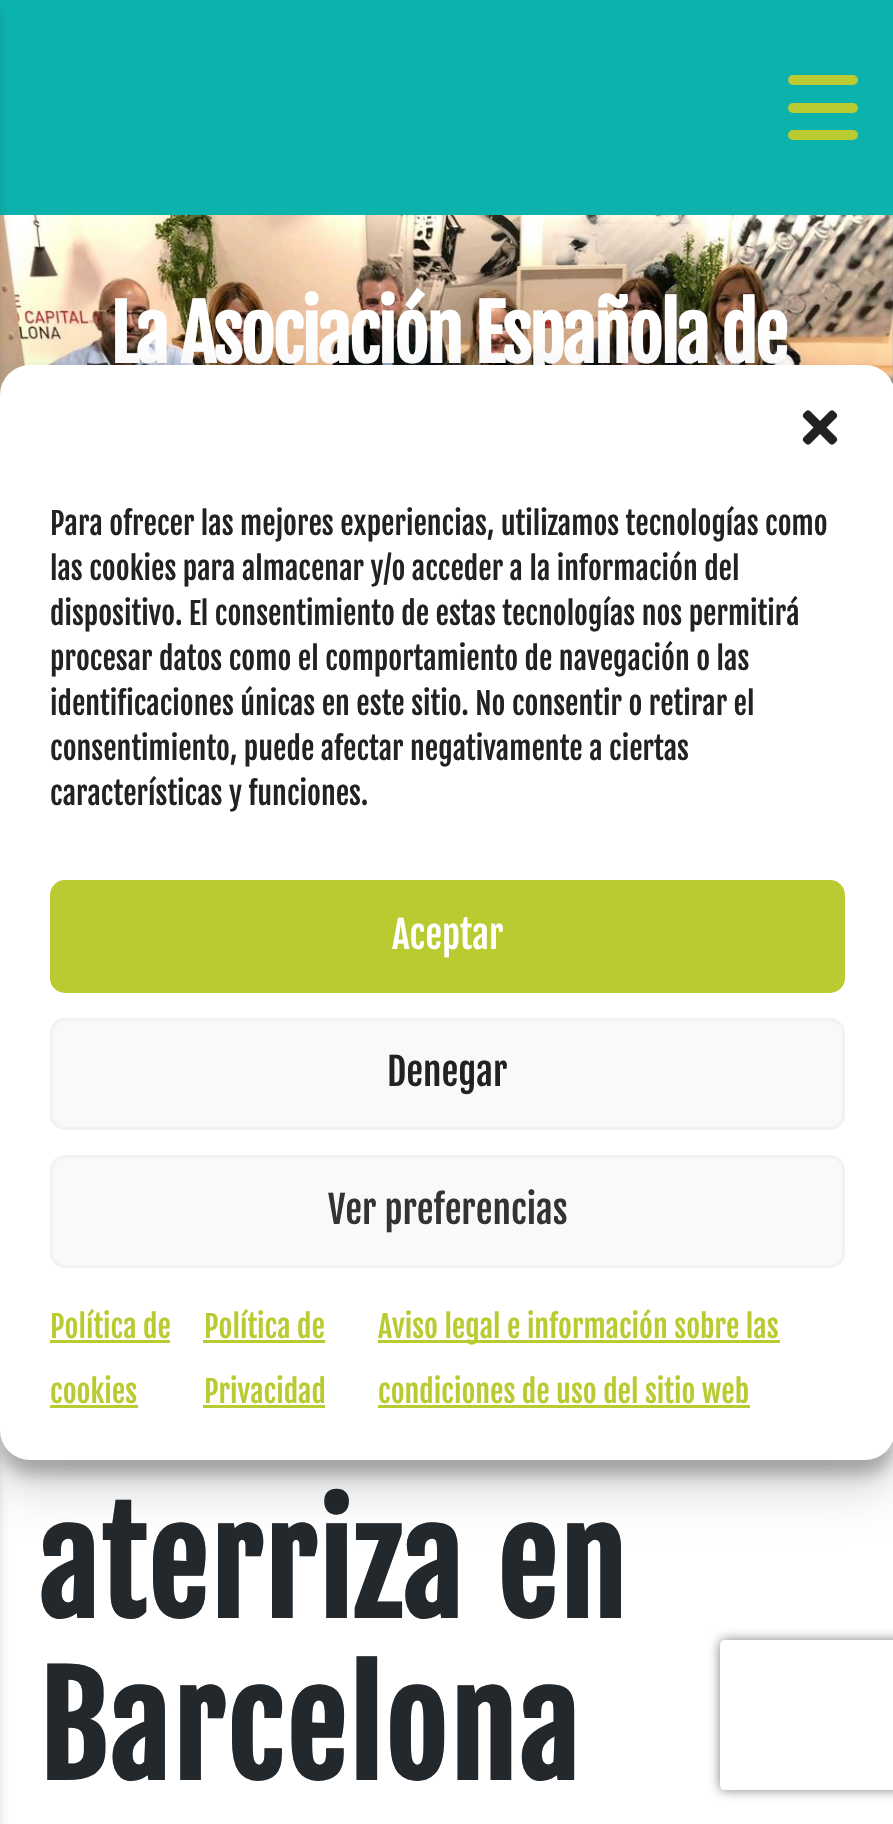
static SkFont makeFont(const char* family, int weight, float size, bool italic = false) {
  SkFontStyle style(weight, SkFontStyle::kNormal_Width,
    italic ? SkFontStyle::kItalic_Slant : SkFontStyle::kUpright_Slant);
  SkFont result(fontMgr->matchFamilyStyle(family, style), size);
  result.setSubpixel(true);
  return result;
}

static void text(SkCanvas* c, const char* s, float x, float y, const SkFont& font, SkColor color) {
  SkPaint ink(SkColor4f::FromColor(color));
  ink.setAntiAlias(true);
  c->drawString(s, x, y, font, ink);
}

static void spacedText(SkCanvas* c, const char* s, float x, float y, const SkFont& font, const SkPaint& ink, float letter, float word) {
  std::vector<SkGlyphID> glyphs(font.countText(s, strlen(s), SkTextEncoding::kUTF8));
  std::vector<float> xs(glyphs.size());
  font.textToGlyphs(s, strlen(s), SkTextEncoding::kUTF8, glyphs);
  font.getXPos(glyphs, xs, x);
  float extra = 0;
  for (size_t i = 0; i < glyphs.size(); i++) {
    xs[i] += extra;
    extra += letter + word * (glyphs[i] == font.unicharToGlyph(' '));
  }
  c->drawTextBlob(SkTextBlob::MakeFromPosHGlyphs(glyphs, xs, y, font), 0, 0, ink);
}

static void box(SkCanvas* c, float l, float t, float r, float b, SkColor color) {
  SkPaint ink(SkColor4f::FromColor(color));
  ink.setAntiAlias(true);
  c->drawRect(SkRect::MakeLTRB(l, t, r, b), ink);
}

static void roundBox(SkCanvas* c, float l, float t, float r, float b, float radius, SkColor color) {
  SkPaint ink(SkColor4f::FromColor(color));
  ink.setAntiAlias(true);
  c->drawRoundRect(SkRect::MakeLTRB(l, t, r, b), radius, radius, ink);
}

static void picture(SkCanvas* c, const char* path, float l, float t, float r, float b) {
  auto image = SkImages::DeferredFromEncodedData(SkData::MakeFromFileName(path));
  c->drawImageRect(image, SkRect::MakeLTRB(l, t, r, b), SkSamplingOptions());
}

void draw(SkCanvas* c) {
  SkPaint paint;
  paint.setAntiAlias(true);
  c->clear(0xffffffff);
  box(c, 0, 0, 893, 215, 0xff0cb3ad);
  roundBox(c, 788, 75, 858, 85, 5, 0xffbaca31);
  roundBox(c, 788, 103, 858, 113, 5, 0xffbaca31);
  roundBox(c, 788, 130, 858, 140, 5, 0xffbaca31);
  picture(c, "img_01.png", 0, 215, 893, 395);
  paint.setColor(0x33000000);
  paint.setMaskFilter(SkMaskFilter::MakeBlur(kNormal_SkBlurStyle, 6));
  c->drawRect(SkRect::MakeLTRB(-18, 8, -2, 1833), paint);
  paint.setMaskFilter(nullptr);
  SkFont face1 = makeFont("Fjalla One", 700, 75);
  paint.setColor(0xffffffff);
  spacedText(c, "La Asociación Española de", 110, 363, face1, paint, -2.5f, 0);
  SkFont face2 = makeFont("Fjalla One", 700, 135);
  paint.setColor(0xff23282d);
  spacedText(c, "aterriza en", 38, 1618, face2, paint, 2.5f, 0);
  spacedText(c, "Barcelona", 38, 1780, face2, paint, 2.5f, 0);
  paint.setColor(0x3b000000);
  paint.setMaskFilter(SkMaskFilter::MakeBlur(kNormal_SkBlurStyle, 7.5f));
  c->drawRoundRect(SkRect::MakeLTRB(0, 380, 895, 1475), 30, 30, paint);
  paint.setMaskFilter(nullptr);
  paint.setColor(0x30000000);
  paint.setMaskFilter(SkMaskFilter::MakeBlur(kNormal_SkBlurStyle, 25));
  c->drawRoundRect(SkRect::MakeLTRB(0, 390, 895, 1485), 30, 30, paint);
  paint.setMaskFilter(nullptr);
  roundBox(c, 0, 365, 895, 1460, 30, 0xffffffff);
  picture(c, "img_02.png", 802, 410, 838, 445);
  SkFont face3 = makeFont("Fjalla One", 400, 30);
  text(c, "Para ofrecer las mejores experiencias, utilizamos tecnologías como", 50, 535, face3, 0xff222222);
  text(c, "las cookies para almacenar y/o acceder a la información del", 50, 580, face3, 0xff222222);
  text(c, "dispositivo. El consentimiento de estas tecnologías nos permitirá", 50, 625, face3, 0xff222222);
  text(c, "procesar datos como el comportamiento de navegación o las", 50, 670, face3, 0xff222222);
  text(c, "identificaciones únicas en este sitio. No consentir o retirar el", 50, 715, face3, 0xff222222);
  text(c, "consentimiento, puede afectar negativamente a ciertas", 50, 760, face3, 0xff222222);
  text(c, "características y funciones.", 50, 805, face3, 0xff222222);
  paint.setColor(0xffbaca31);
  c->drawRoundRect(SkRect::MakeLTRB(51.5f, 881.5f, 843.5f, 991.5f), 13.5f, 13.5f, paint);
  paint.setStyle(SkPaint::kStroke_Style);
  paint.setStrokeWidth(3);
  c->drawRoundRect(SkRect::MakeLTRB(51.5f, 881.5f, 843.5f, 991.5f), 13.5f, 13.5f, paint);
  SkFont face4 = makeFont("Fjalla One", 400, 37.5f);
  text(c, "Aceptar", 392, 949, face4, 0xffffffff);
  paint.setStyle(SkPaint::kFill_Style);
  paint.setColor(0xfff9f9f9);
  c->drawRoundRect(SkRect::MakeLTRB(51.5f, 1019.5f, 843.5f, 1128.5f), 13.5f, 13.5f, paint);
  paint.setStyle(SkPaint::kStroke_Style);
  paint.setColor(0xfff2f2f2);
  c->drawRoundRect(SkRect::MakeLTRB(51.5f, 1019.5f, 843.5f, 1128.5f), 13.5f, 13.5f, paint);
  text(c, "Denegar", 387, 1086, face4, 0xff222222);
  paint.setStyle(SkPaint::kFill_Style);
  paint.setColor(0xfff9f9f9);
  c->drawRoundRect(SkRect::MakeLTRB(51.5f, 1156.5f, 843.5f, 1266.5f), 13.5f, 13.5f, paint);
  paint.setStyle(SkPaint::kStroke_Style);
  paint.setColor(0xfff2f2f2);
  c->drawRoundRect(SkRect::MakeLTRB(51.5f, 1156.5f, 843.5f, 1266.5f), 13.5f, 13.5f, paint);
  text(c, "Ver preferencias", 328, 1224, face4, 0xff333333);
  text(c, "Política de", 50, 1338, face3, 0xffbaca31);
  box(c, 50, 1340, 170, 1343, 0xffbaca31);
  text(c, "cookies", 50, 1403, face3, 0xffbaca31);
  box(c, 50, 1405, 138, 1408, 0xffbaca31);
  text(c, "Política de", 204, 1338, face3, 0xffbaca31);
  box(c, 203, 1340, 325, 1343, 0xffbaca31);
  text(c, "Privacidad", 204, 1403, face3, 0xffbaca31);
  box(c, 203, 1405, 325, 1408, 0xffbaca31);
  box(c, 378, 1340, 780, 1343, 0xffbaca31);
  text(c, "Aviso legal e información sobre las", 378, 1338, face3, 0xffbaca31);
  text(c, "condiciones de uso del sitio web", 378, 1403, face3, 0xffbaca31);
  box(c, 378, 1405, 750, 1408, 0xffbaca31);
  c->save();
  c->clipPath(SkPathBuilder(SkPathFillType::kEvenOdd).moveTo(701, 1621).lineTo(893, 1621).lineTo(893, 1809).lineTo(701, 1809).close().moveTo(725, 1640).lineTo(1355, 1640).cubicTo(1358, 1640, 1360, 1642, 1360, 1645).lineTo(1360, 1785).cubicTo(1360, 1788, 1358, 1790, 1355, 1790).lineTo(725, 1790).cubicTo(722, 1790, 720, 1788, 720, 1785).lineTo(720, 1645).cubicTo(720, 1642, 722, 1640, 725, 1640).close().detach(), true);
  paint.setStyle(SkPaint::kFill_Style);
  paint.setColor(0xff808080);
  paint.setMaskFilter(SkMaskFilter::MakeBlur(kNormal_SkBlurStyle, 6));
  c->drawRoundRect(SkRect::MakeLTRB(720, 1640, 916, 1790), 5, 5, paint);
  paint.setMaskFilter(nullptr);
  c->restore();
}
